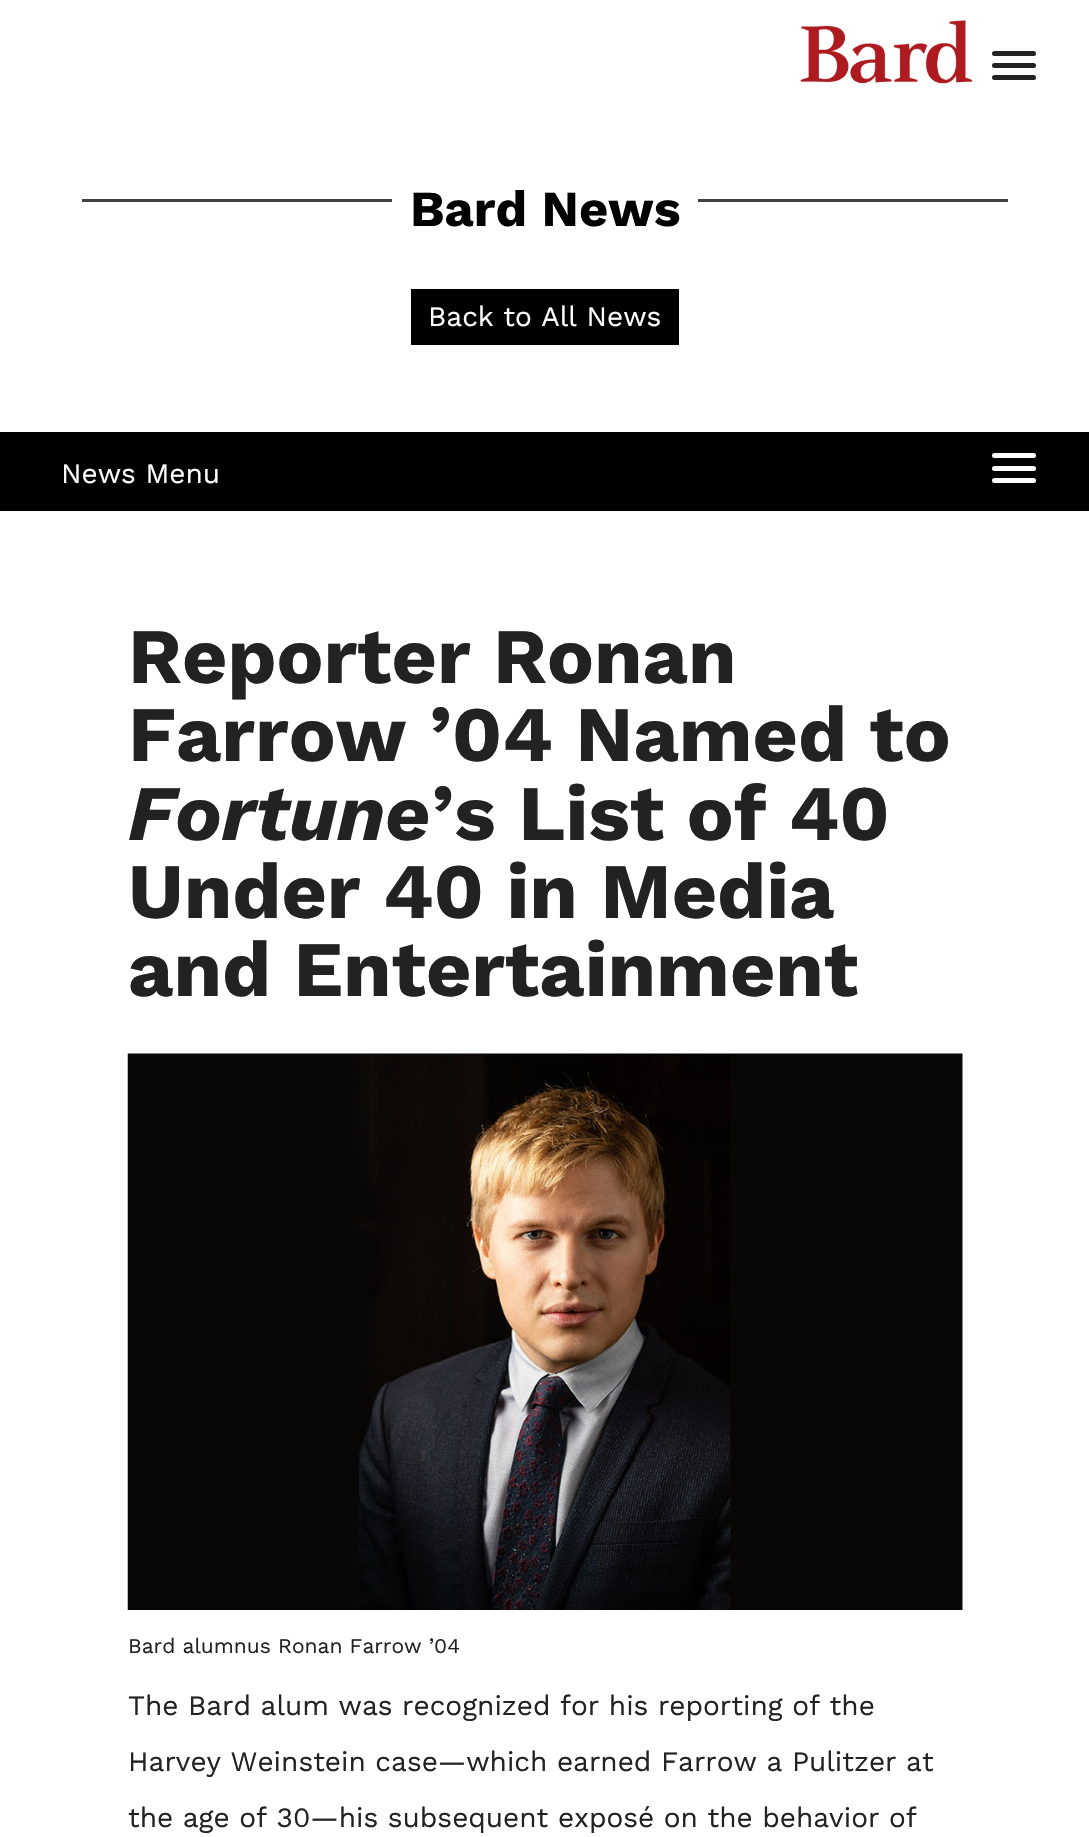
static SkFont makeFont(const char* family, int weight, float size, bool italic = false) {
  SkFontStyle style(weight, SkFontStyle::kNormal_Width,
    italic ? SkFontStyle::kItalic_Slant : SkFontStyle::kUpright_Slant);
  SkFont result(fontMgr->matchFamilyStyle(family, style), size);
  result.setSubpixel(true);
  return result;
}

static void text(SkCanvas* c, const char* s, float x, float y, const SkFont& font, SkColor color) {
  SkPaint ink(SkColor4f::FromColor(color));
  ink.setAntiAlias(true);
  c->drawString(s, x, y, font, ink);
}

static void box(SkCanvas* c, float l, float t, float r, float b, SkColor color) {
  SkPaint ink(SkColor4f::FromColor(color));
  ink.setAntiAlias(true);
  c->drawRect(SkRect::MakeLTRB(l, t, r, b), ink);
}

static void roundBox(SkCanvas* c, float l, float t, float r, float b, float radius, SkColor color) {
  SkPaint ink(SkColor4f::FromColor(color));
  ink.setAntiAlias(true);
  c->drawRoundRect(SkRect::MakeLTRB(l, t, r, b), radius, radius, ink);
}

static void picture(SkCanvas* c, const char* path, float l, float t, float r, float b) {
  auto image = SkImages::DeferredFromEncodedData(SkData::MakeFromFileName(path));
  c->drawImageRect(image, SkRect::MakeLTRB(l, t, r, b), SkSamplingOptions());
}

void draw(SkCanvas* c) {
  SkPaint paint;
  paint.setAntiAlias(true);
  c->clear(0xffffffff);
  picture(c, "img_01.png", 800, 20, 973, 84);
  roundBox(c, 992, 51, 1036, 56, 2.5f, 0xff222222);
  roundBox(c, 992, 63, 1036, 68, 2.5f, 0xff222222);
  roundBox(c, 992, 75, 1036, 80, 2.5f, 0xff222222);
  box(c, 82, 199, 1008, 202, 0xff414141);
  box(c, 392, 199, 698, 202, 0xffffffff);
  SkFont face1 = makeFont("Work Sans", 700, 50.5f);
  text(c, "Bard News", 410, 226, face1, 0xff000000);
  box(c, 411, 289, 679, 345, 0xff000000);
  SkFont face2 = makeFont("Work Sans", 400, 28);
  text(c, "Back to All News", 428, 326, face2, 0xffffffff);
  box(c, 0, 432, 1089, 511, 0xff000000);
  text(c, "News Menu", 61, 483, face2, 0xffffffff);
  roundBox(c, 992, 453, 1036, 458, 2.5f, 0xffffffff);
  roundBox(c, 992, 466, 1036, 471, 2.5f, 0xffffffff);
  roundBox(c, 992, 478, 1036, 483, 2.5f, 0xffffffff);
  SkFont face3 = makeFont("Work Sans", 700, 78.4f);
  text(c, "Reporter Ronan", 128, 683, face3, 0xff222222);
  text(c, "Farrow ’04 Named to", 128, 761, face3, 0xff222222);
  SkFont face4 = makeFont("Work Sans", 700, 78.4f, true);
  text(c, "Fortune", 128, 840, face4, 0xff222222);
  text(c, "’s List of 40", 431, 840, face3, 0xff222222);
  text(c, "Under 40 in Media", 128, 918, face3, 0xff222222);
  text(c, "and Entertainment", 128, 996, face3, 0xff222222);
  picture(c, "img_02.png", 127, 1053, 963, 1610);
  SkFont face5 = makeFont("Work Sans", 400, 21);
  text(c, "Bard alumnus Ronan Farrow ’04", 128, 1653, face5, 0xff222222);
  text(c, "The Bard alum was recognized for his reporting of the", 128, 1715, face2, 0xff222222);
  text(c, "Harvey Weinstein case—which earned Farrow a Pulitzer at", 128, 1771, face2, 0xff222222);
  text(c, "the age of 30—his subsequent exposé on the behavior of", 128, 1827, face2, 0xff222222);
}
